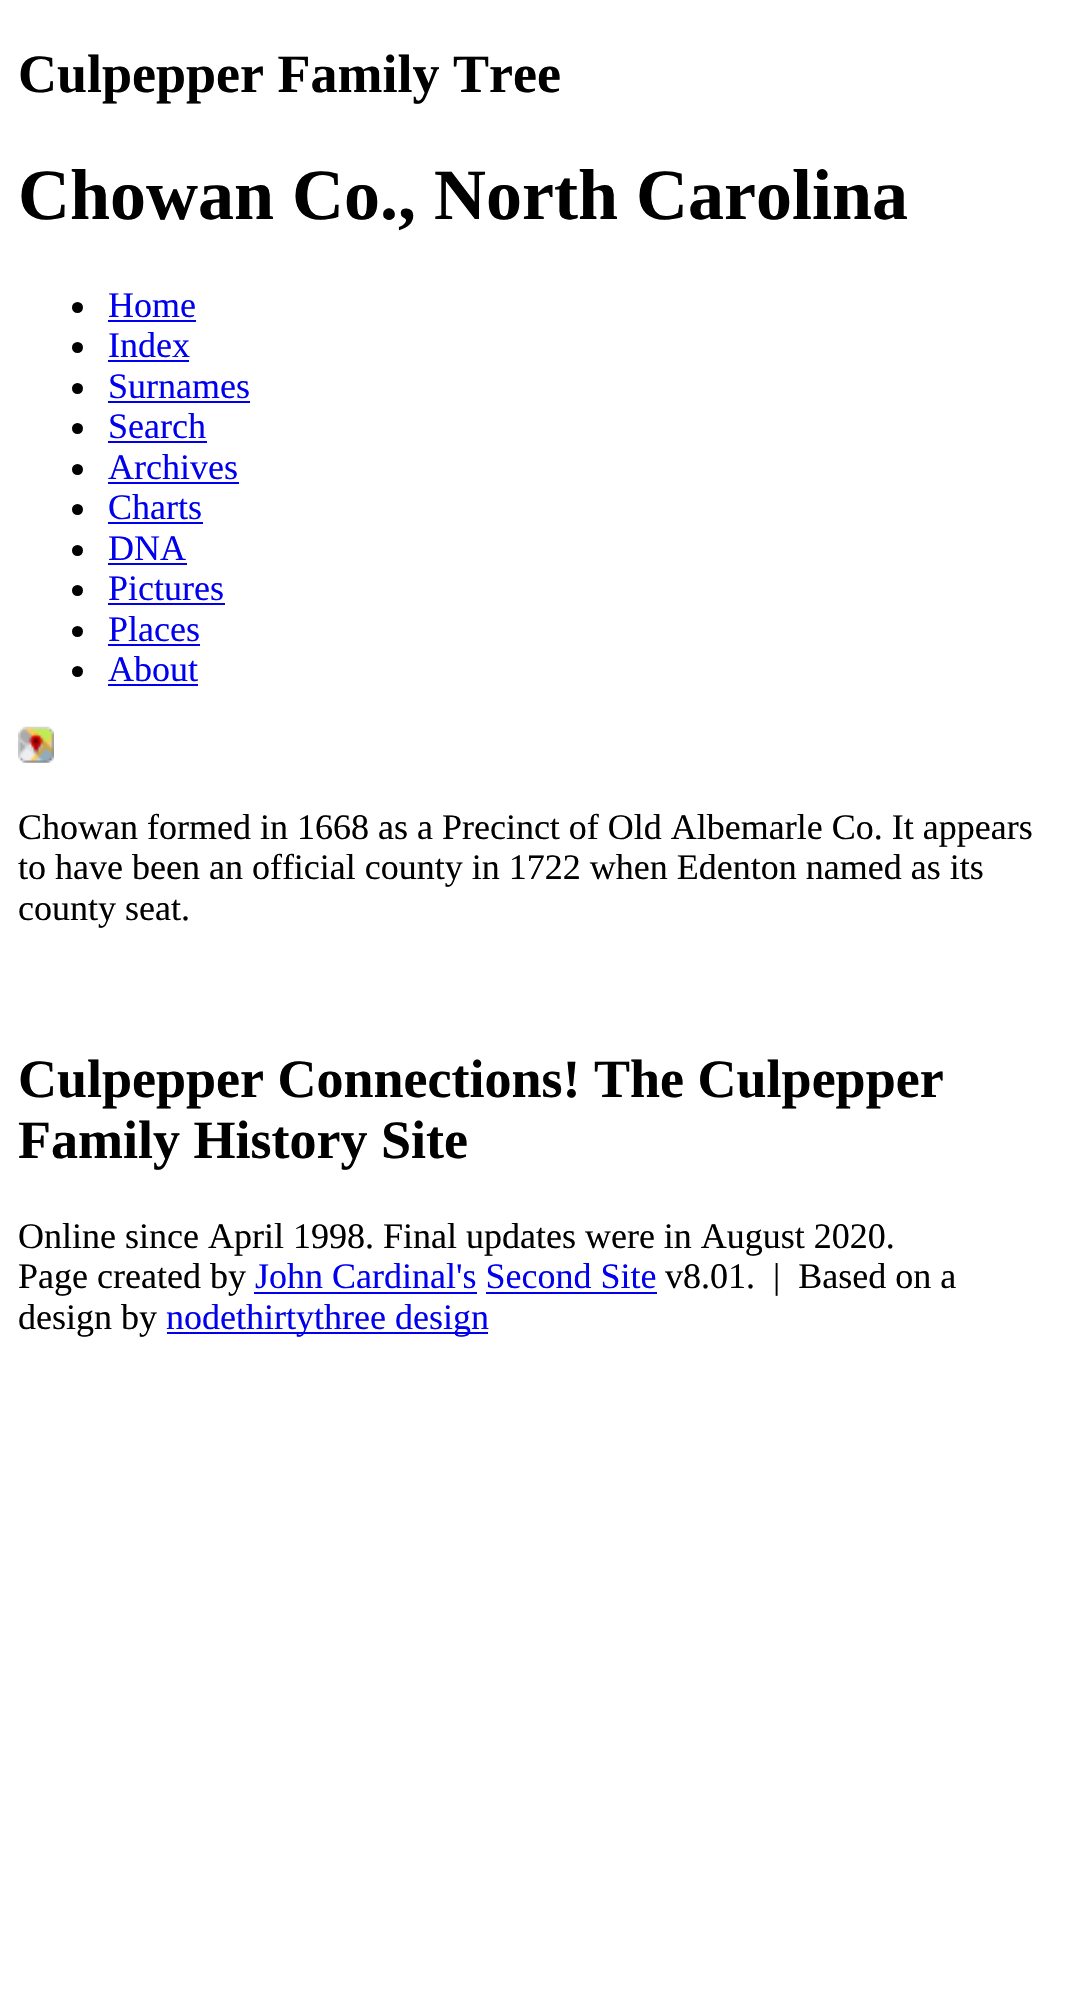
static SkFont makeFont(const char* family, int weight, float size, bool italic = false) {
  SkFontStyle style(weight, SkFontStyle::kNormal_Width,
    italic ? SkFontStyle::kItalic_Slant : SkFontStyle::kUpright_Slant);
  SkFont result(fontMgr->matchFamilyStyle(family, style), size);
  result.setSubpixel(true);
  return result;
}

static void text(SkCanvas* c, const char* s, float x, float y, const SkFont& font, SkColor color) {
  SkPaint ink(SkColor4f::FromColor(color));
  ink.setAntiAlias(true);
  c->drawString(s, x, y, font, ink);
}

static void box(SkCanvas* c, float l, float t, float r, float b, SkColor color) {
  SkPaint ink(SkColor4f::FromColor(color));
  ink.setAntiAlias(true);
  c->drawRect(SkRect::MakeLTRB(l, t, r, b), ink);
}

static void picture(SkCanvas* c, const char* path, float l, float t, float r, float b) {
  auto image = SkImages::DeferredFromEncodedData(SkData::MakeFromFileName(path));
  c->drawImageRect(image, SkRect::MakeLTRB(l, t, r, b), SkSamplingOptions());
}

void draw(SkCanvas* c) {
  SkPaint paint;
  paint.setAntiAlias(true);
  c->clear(0xffffffff);
  SkFont face1 = makeFont("Liberation Serif", 700, 54);
  text(c, "Culpepper Family Tree", 18, 92, face1, 0xff000000);
  SkFont face2 = makeFont("Liberation Serif", 700, 72);
  text(c, "Chowan Co., North Carolina", 18, 219, face2, 0xff000000);
  paint.setColor(0xff000000);
  c->drawCircle(77.5f, 307.5f, 5.5f, paint);
  SkFont face3 = makeFont("Liberation Serif", 400, 36);
  text(c, "Home", 108, 317, face3, 0xff0000ee);
  box(c, 108, 320, 196, 322, 0xff0000ee);
  c->drawCircle(77.5f, 347.5f, 5.5f, paint);
  text(c, "Index", 108, 357, face3, 0xff0000ee);
  box(c, 108, 360, 189, 362, 0xff0000ee);
  c->drawCircle(77.5f, 388.5f, 5.5f, paint);
  text(c, "Surnames", 108, 398, face3, 0xff0000ee);
  box(c, 108, 401, 250, 403, 0xff0000ee);
  c->drawCircle(77.5f, 428.5f, 5.5f, paint);
  text(c, "Search", 108, 438, face3, 0xff0000ee);
  box(c, 108, 441, 207, 443, 0xff0000ee);
  c->drawCircle(77.5f, 469.5f, 5.5f, paint);
  text(c, "Archives", 108, 479, face3, 0xff0000ee);
  box(c, 108, 482, 239, 484, 0xff0000ee);
  c->drawCircle(77.5f, 509.5f, 5.5f, paint);
  text(c, "Charts", 108, 519, face3, 0xff0000ee);
  box(c, 108, 522, 203, 524, 0xff0000ee);
  c->drawCircle(77.5f, 550.5f, 5.5f, paint);
  text(c, "DNA", 108, 560, face3, 0xff0000ee);
  box(c, 108, 563, 187, 565, 0xff0000ee);
  c->drawCircle(77.5f, 590.5f, 5.5f, paint);
  text(c, "Pictures", 108, 600, face3, 0xff0000ee);
  box(c, 108, 603, 225, 605, 0xff0000ee);
  c->drawCircle(77.5f, 631.5f, 5.5f, paint);
  text(c, "Places", 108, 641, face3, 0xff0000ee);
  box(c, 108, 644, 200, 646, 0xff0000ee);
  c->drawCircle(77.5f, 671.5f, 5.5f, paint);
  text(c, "About", 108, 681, face3, 0xff0000ee);
  box(c, 108, 684, 198, 686, 0xff0000ee);
  picture(c, "img_01.png", 18, 726, 54, 763);
  text(c, "Chowan formed in 1668 as a Precinct of Old Albemarle Co. It appears", 18, 839, face3, 0xff000000);
  text(c, "to have been an official county in 1722 when Edenton named as its", 18, 879, face3, 0xff000000);
  text(c, "county seat.", 18, 920, face3, 0xff000000);
  text(c, "Culpepper Connections! The Culpepper", 18, 1097, face1, 0xff000000);
  text(c, "Family History Site", 18, 1158, face1, 0xff000000);
  text(c, "Online since April 1998. Final updates were in August 2020.", 18, 1248, face3, 0xff000000);
  text(c, "Page created by", 18, 1288, face3, 0xff000000);
  text(c, "John Cardinal's Second Site", 255, 1288, face3, 0xff0000ee);
  box(c, 254, 1292, 477, 1294, 0xff0000ee);
  text(c, "v8.01.  |  Based on a", 665, 1288, face3, 0xff000000);
  box(c, 486, 1292, 657, 1294, 0xff0000ee);
  text(c, "design by", 18, 1329, face3, 0xff000000);
  box(c, 167, 1332, 488, 1334, 0xff0000ee);
  text(c, "nodethirtythree design", 166, 1329, face3, 0xff0000ee);
}
